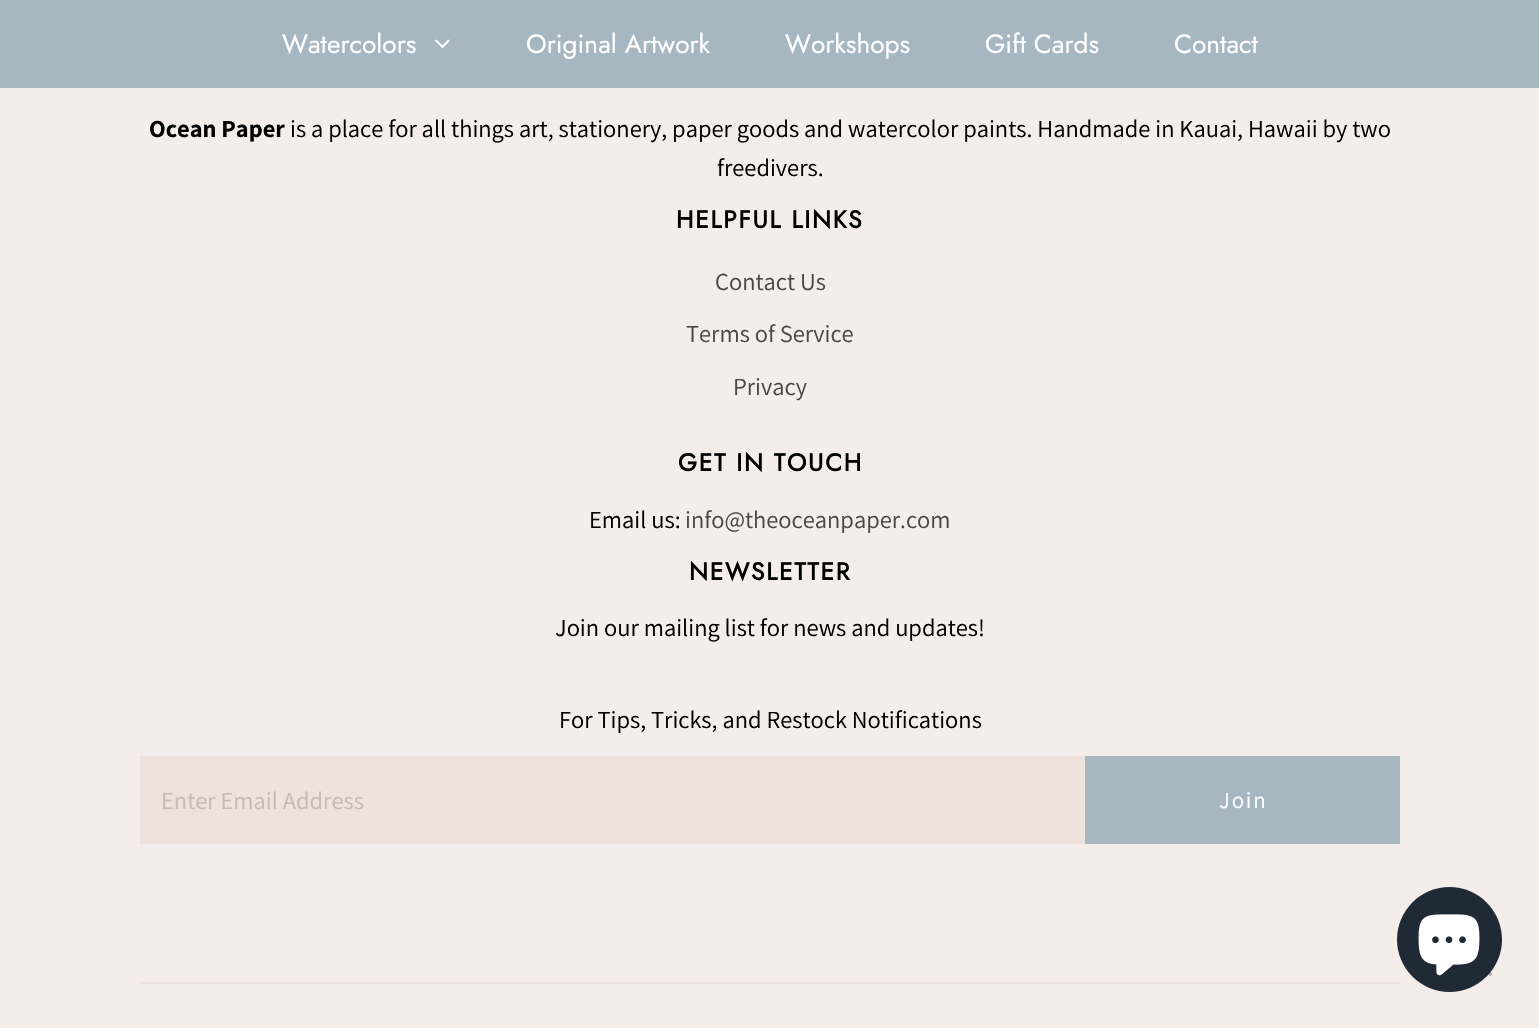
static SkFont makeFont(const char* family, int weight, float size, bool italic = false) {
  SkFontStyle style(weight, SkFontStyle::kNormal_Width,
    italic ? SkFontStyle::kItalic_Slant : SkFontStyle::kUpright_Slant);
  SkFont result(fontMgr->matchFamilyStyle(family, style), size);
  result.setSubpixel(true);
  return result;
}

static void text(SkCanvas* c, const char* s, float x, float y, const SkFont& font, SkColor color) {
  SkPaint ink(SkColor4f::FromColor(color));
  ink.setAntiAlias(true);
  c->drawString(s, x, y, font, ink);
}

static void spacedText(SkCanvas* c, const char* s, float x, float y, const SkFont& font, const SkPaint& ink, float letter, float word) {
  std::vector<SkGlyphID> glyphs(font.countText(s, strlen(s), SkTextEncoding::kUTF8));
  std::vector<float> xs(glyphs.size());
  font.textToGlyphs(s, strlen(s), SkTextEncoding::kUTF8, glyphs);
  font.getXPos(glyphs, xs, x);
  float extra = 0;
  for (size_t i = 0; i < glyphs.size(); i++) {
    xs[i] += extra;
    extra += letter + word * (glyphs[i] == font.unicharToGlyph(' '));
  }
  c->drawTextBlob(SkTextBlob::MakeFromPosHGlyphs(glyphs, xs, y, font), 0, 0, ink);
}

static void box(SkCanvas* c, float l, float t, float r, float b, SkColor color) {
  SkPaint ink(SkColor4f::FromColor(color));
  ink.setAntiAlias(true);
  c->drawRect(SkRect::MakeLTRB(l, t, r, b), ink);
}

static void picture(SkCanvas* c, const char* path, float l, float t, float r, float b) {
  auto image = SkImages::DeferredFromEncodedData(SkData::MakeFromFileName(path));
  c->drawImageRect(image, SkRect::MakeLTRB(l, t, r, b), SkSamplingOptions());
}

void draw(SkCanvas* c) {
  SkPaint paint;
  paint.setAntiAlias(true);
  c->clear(0xfff5edea);
  box(c, 0, 0, 1539, 88, 0xffa6b7c2);
  SkFont face1 = makeFont("Jost", 400, 26.25f);
  text(c, "Watercolors", 282, 53, face1, 0xffffffff);
  picture(c, "img_01.png", 435, 39, 450, 48);
  text(c, "Original Artwork", 526, 53, face1, 0xffffffff);
  text(c, "Workshops", 785, 53, face1, 0xffffffff);
  text(c, "Gift Cards", 985, 53, face1, 0xffffffff);
  text(c, "Contact", 1174, 53, face1, 0xffffffff);
  SkFont face2 = makeFont("Assistant", 700, 24.5f);
  text(c, "Ocean Paper", 149, 137, face2, 0xff000000);
  SkFont face3 = makeFont("Assistant", 400, 24.5f);
  text(c, "is a place for all things art, stationery, paper goods and watercolor paints. Handmade in Kauai, Hawaii by two", 290, 137, face3, 0xff000000);
  text(c, "freedivers.", 717, 176, face3, 0xff000000);
  SkFont face4 = makeFont("Jost", 700, 24.5f);
  paint.setColor(0xff000000);
  spacedText(c, "HELPFUL LINKS", 676, 228, face4, paint, 1.75f, 0);
  text(c, "Contact Us", 715, 290, face3, 0xff4a4746);
  text(c, "Terms of Service", 686, 342, face3, 0xff4a4746);
  text(c, "Privacy", 733, 395, face3, 0xff4a4746);
  spacedText(c, "GET IN TOUCH", 678, 471, face4, paint, 1.75f, 0);
  text(c, "Email us:", 589, 528, face3, 0xff000000);
  text(c, "info@theoceanpaper.com", 685, 528, face3, 0xff4a4746);
  spacedText(c, "NEWSLETTER", 689, 580, face4, paint, 1.75f, 0);
  text(c, "Join our mailing list for news and updates!", 555, 636, face3, 0xff000000);
  text(c, "For Tips, Tricks, and Restock Notifications", 559, 728, face3, 0xff000000);
  box(c, 140, 756, 1085, 844, 0xffeee2dd);
  text(c, "Enter Email Address", 161, 809, face3, 0xffc7b9b4);
  box(c, 1085, 756, 1400, 844, 0xffa6b7c2);
  SkFont face5 = makeFont("Assistant", 400, 23);
  paint.setColor(0xffffffff);
  spacedText(c, "Join", 1219, 808, face5, paint, 1.75f, 0);
  box(c, 140, 982, 1400, 984, 0xffeee2dd);
  picture(c, "img_03.png", 1488, 971, 1493, 976);
  paint.setColor(0xff202a36);
  c->drawCircle(1449.5f, 939.5f, 52.5f, paint);
  picture(c, "img_02.png", 1418, 914, 1480, 976);
}
